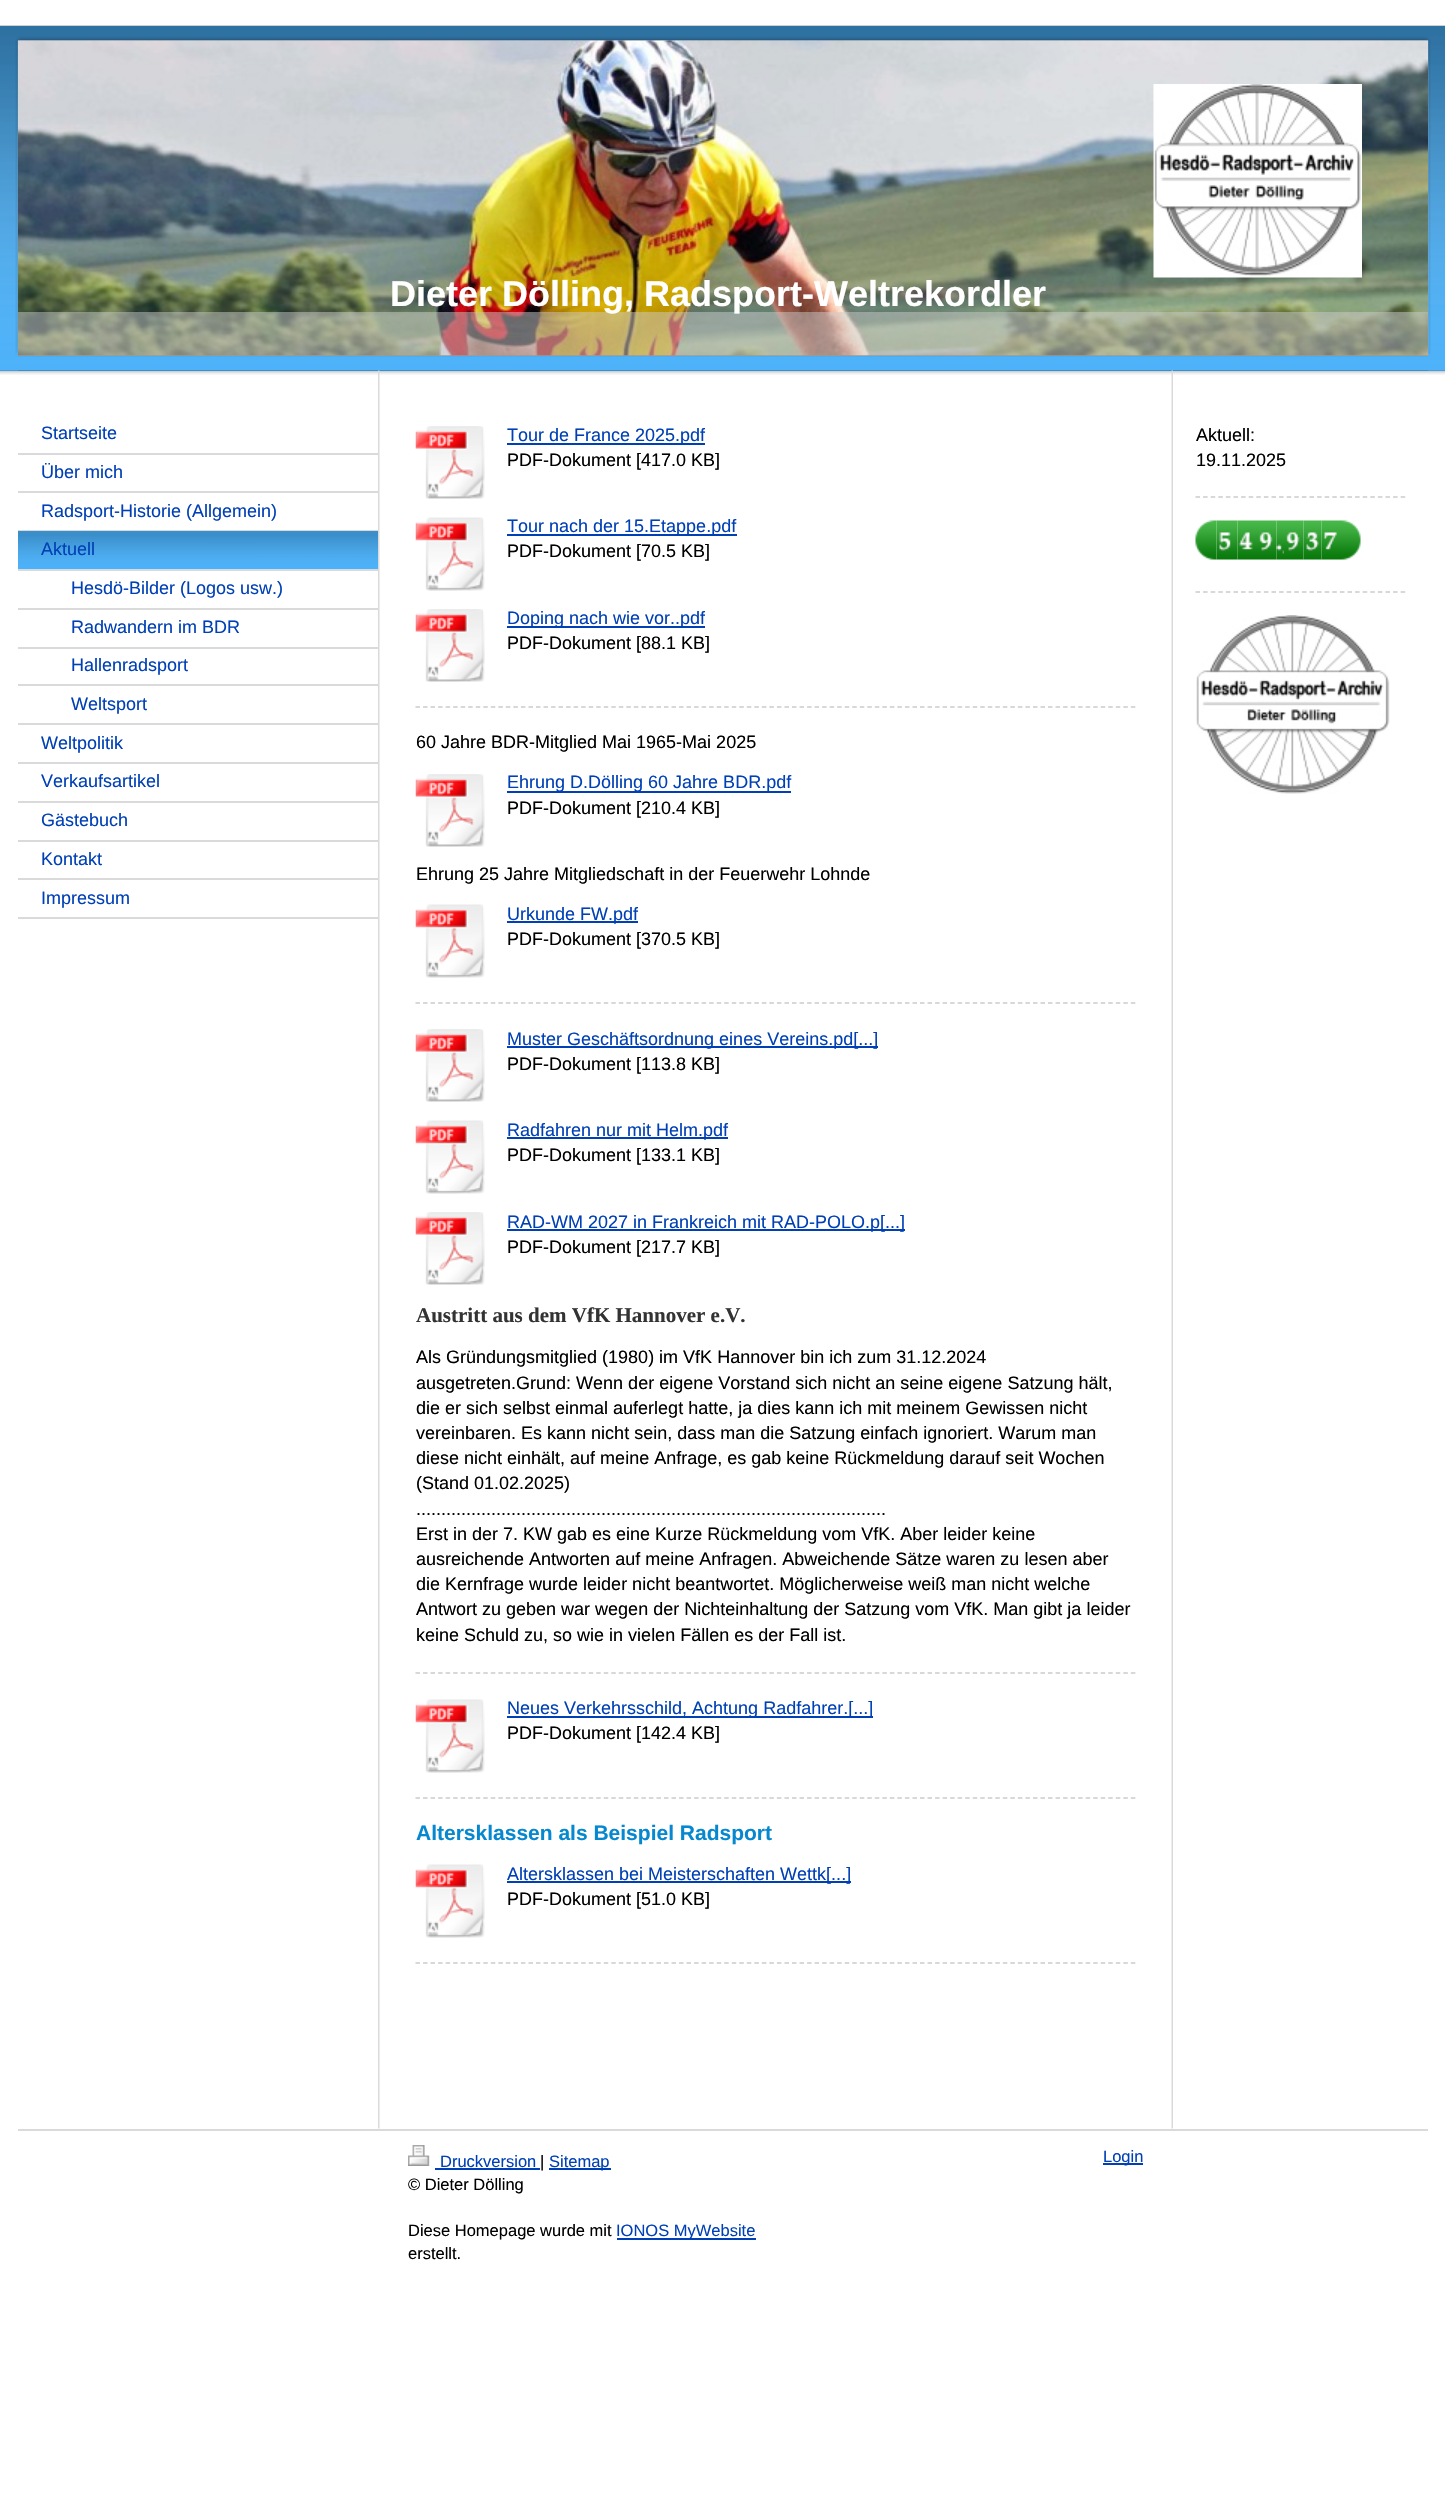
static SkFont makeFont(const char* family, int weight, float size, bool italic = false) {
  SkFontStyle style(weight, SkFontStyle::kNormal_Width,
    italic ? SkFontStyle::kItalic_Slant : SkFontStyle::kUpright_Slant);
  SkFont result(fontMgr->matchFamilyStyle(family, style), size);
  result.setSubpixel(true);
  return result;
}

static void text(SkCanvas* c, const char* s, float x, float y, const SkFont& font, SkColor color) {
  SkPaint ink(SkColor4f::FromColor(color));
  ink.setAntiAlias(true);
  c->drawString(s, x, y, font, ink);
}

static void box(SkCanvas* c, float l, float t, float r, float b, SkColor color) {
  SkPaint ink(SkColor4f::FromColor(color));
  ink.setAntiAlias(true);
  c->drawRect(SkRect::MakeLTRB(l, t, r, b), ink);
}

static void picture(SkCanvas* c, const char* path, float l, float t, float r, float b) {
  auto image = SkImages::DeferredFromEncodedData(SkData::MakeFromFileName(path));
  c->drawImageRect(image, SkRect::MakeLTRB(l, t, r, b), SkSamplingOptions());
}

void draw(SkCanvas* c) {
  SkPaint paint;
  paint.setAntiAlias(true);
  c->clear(0xffffffff);
  box(c, 0, 26, 1445, 371, 0xff48b2fd);
  picture(c, "img_01.png", 0, 25, 1445, 370);
  picture(c, "img_02.png", 15, 36, 1431, 357);
  picture(c, "img_03.png", 18, 40, 1428, 41);
  box(c, 18, 355, 1428, 356, 0xff666666);
  picture(c, "img_04.png", 18, 40, 1428, 356);
  picture(c, "img_05.png", 1153, 84, 1362, 278);
  box(c, 18, 312, 1428, 356, 0x80cccccc);
  SkFont face1 = makeFont("Liberation Sans", 700, 36);
  text(c, "Dieter Dölling, Radsport-Weltrekordler", 390, 306, face1, 0xffffffff);
  picture(c, "img_06.png", 0, 370, 1445, 375);
  box(c, 18, 371, 1428, 375, 0xffffffff);
  picture(c, "img_07.png", 18, 370, 1428, 375);
  picture(c, "img_08.png", 378, 370, 1173, 2129);
  box(c, 18, 453, 378, 455, 0xffdadada);
  SkFont face2 = makeFont("Liberation Sans", 400, 18);
  text(c, "Startseite", 41, 439, face2, 0xff0040b6);
  box(c, 18, 491, 378, 493, 0xffdadada);
  text(c, "Über mich", 41, 478, face2, 0xff0040b6);
  box(c, 18, 530, 378, 531, 0xffdadada);
  text(c, "Radsport-Historie (Allgemein)", 41, 517, face2, 0xff0040b6);
  box(c, 18, 531, 378, 569, 0xff48b2fd);
  picture(c, "img_09.png", 18, 531, 378, 566);
  box(c, 18, 569, 378, 571, 0xffdadada);
  text(c, "Aktuell", 41, 555, face2, 0xff0040b6);
  box(c, 18, 608, 378, 610, 0xffdadada);
  text(c, "Hesdö-Bilder (Logos usw.)", 71, 594, face2, 0xff0040b6);
  box(c, 18, 647, 378, 649, 0xffdadada);
  text(c, "Radwandern im BDR", 71, 633, face2, 0xff0040b6);
  box(c, 18, 684, 378, 686, 0xffdadada);
  text(c, "Hallenradsport", 71, 671, face2, 0xff0040b6);
  box(c, 18, 723, 378, 725, 0xffdadada);
  text(c, "Weltsport", 71, 710, face2, 0xff0040b6);
  box(c, 18, 762, 378, 764, 0xffdadada);
  text(c, "Weltpolitik", 41, 749, face2, 0xff0040b6);
  box(c, 18, 801, 378, 803, 0xffdadada);
  text(c, "Verkaufsartikel", 41, 787, face2, 0xff0040b6);
  box(c, 18, 840, 378, 842, 0xffdadada);
  text(c, "Gästebuch", 41, 826, face2, 0xff0040b6);
  box(c, 18, 878, 378, 880, 0xffdadada);
  text(c, "Kontakt", 41, 865, face2, 0xff0040b6);
  box(c, 18, 917, 378, 919, 0xffdadada);
  text(c, "Impressum", 41, 904, face2, 0xff0040b6);
  picture(c, "img_10.png", 415, 426, 485, 499);
  box(c, 507, 443, 705, 445, 0xff0040b6);
  text(c, "Tour de France 2025.pdf", 507, 441, face2, 0xff0040b6);
  text(c, "PDF-Dokument [417.0 KB]", 507, 466, face2, 0xff000000);
  picture(c, "img_11.png", 415, 517, 485, 591);
  box(c, 507, 534, 737, 536, 0xff0040b6);
  text(c, "Tour nach der 15.Etappe.pdf", 507, 532, face2, 0xff0040b6);
  text(c, "PDF-Dokument [70.5 KB]", 507, 557, face2, 0xff000000);
  picture(c, "img_10.png", 415, 609, 485, 682);
  box(c, 507, 626, 705, 628, 0xff0040b6);
  text(c, "Doping nach wie vor..pdf", 507, 624, face2, 0xff0040b6);
  text(c, "PDF-Dokument [88.1 KB]", 507, 649, face2, 0xff000000);
  paint.setStyle(SkPaint::kStroke_Style);
  paint.setStrokeWidth(1.5f);
  paint.setColor(0xffcccccc);
  paint.setPathEffect(SkDashPathEffect::Make({{4.5f, 3.03f}}, 0));
  c->drawPath(SkPathBuilder().moveTo(415.5f, 707).lineTo(1135.5f, 707).detach(), paint);
  paint.setPathEffect(nullptr);
  text(c, "60 Jahre BDR-Mitglied Mai 1965-Mai 2025", 416, 748, face2, 0xff000000);
  picture(c, "img_10.png", 415, 774, 485, 847);
  box(c, 507, 791, 791, 793, 0xff0040b6);
  text(c, "Ehrung D.Dölling 60 Jahre BDR.pdf", 507, 788, face2, 0xff0040b6);
  text(c, "PDF-Dokument [210.4 KB]", 507, 814, face2, 0xff000000);
  text(c, "Ehrung 25 Jahre Mitgliedschaft in der Feuerwehr Lohnde", 416, 880, face2, 0xff000000);
  picture(c, "img_11.png", 415, 904, 485, 978);
  box(c, 507, 921, 638, 923, 0xff0040b6);
  text(c, "Urkunde FW.pdf", 507, 920, face2, 0xff0040b6);
  text(c, "PDF-Dokument [370.5 KB]", 507, 945, face2, 0xff000000);
  paint.setPathEffect(SkDashPathEffect::Make({{4.5f, 3.03f}}, 0));
  c->drawPath(SkPathBuilder().moveTo(415.5f, 1003).lineTo(1135.5f, 1003).detach(), paint);
  paint.setPathEffect(nullptr);
  picture(c, "img_10.png", 415, 1029, 485, 1102);
  box(c, 507, 1046, 878, 1048, 0xff0040b6);
  text(c, "Muster Geschäftsordnung eines Vereins.pd[...]", 507, 1045, face2, 0xff0040b6);
  text(c, "PDF-Dokument [113.8 KB]", 507, 1070, face2, 0xff000000);
  picture(c, "img_11.png", 415, 1120, 485, 1194);
  box(c, 507, 1137, 728, 1139, 0xff0040b6);
  text(c, "Radfahren nur mit Helm.pdf", 507, 1136, face2, 0xff0040b6);
  text(c, "PDF-Dokument [133.1 KB]", 507, 1161, face2, 0xff000000);
  picture(c, "img_10.png", 415, 1212, 485, 1285);
  box(c, 507, 1229, 905, 1231, 0xff0040b6);
  text(c, "RAD-WM 2027 in Frankreich mit RAD-POLO.p[...]", 507, 1228, face2, 0xff0040b6);
  text(c, "PDF-Dokument [217.7 KB]", 507, 1253, face2, 0xff000000);
  SkFont face3 = makeFont("Liberation Serif", 700, 21);
  text(c, "Austritt aus dem VfK Hannover e.V.", 416, 1322, face3, 0xff333333);
  text(c, "Als Gründungsmitglied (1980) im VfK Hannover bin ich zum 31.12.2024", 416, 1363, face2, 0xff000000);
  text(c, "ausgetreten.Grund: Wenn der eigene Vorstand sich nicht an seine eigene Satzung hält,", 416, 1389, face2, 0xff000000);
  text(c, "die er sich selbst einmal auferlegt hatte, ja dies kann ich mit meinem Gewissen nicht", 416, 1414, face2, 0xff000000);
  text(c, "vereinbaren. Es kann nicht sein, dass man die Satzung einfach ignoriert. Warum man", 416, 1439, face2, 0xff000000);
  text(c, "diese nicht einhält, auf meine Anfrage, es gab keine Rückmeldung darauf seit Wochen", 416, 1464, face2, 0xff000000);
  text(c, "(Stand 01.02.2025)", 416, 1489, face2, 0xff000000);
  text(c, "..............................................................................................", 416, 1515, face2, 0xff000000);
  text(c, "Erst in der 7. KW gab es eine Kurze Rückmeldung vom VfK. Aber leider keine", 416, 1540, face2, 0xff000000);
  text(c, "ausreichende Antworten auf meine Anfragen. Abweichende Sätze waren zu lesen aber", 416, 1565, face2, 0xff000000);
  text(c, "die Kernfrage wurde leider nicht beantwortet. Möglicherweise weiß man nicht welche", 416, 1590, face2, 0xff000000);
  text(c, "Antwort zu geben war wegen der Nichteinhaltung der Satzung vom VfK. Man gibt ja leider", 416, 1615, face2, 0xff000000);
  text(c, "keine Schuld zu, so wie in vielen Fällen es der Fall ist.", 416, 1641, face2, 0xff000000);
  paint.setPathEffect(SkDashPathEffect::Make({{4.5f, 3.03f}}, 0));
  c->drawPath(SkPathBuilder().moveTo(415.5f, 1673).lineTo(1135.5f, 1673).detach(), paint);
  paint.setPathEffect(nullptr);
  picture(c, "img_11.png", 415, 1699, 485, 1773);
  box(c, 507, 1716, 873, 1718, 0xff0040b6);
  text(c, "Neues Verkehrsschild, Achtung Radfahrer.[...]", 507, 1714, face2, 0xff0040b6);
  text(c, "PDF-Dokument [142.4 KB]", 507, 1739, face2, 0xff000000);
  paint.setPathEffect(SkDashPathEffect::Make({{4.5f, 3.03f}}, 0));
  c->drawPath(SkPathBuilder().moveTo(415.5f, 1798).lineTo(1135.5f, 1798).detach(), paint);
  paint.setPathEffect(nullptr);
  SkFont face4 = makeFont("Liberation Sans", 700, 21);
  text(c, "Altersklassen als Beispiel Radsport", 416, 1840, face4, 0xff0688d1);
  picture(c, "img_11.png", 415, 1864, 485, 1938);
  box(c, 507, 1881, 851, 1883, 0xff0040b6);
  text(c, "Altersklassen bei Meisterschaften Wettk[...]", 507, 1880, face2, 0xff0040b6);
  text(c, "PDF-Dokument [51.0 KB]", 507, 1905, face2, 0xff000000);
  paint.setPathEffect(SkDashPathEffect::Make({{4.5f, 3.03f}}, 0));
  c->drawPath(SkPathBuilder().moveTo(415.5f, 1963).lineTo(1135.5f, 1963).detach(), paint);
  paint.setPathEffect(nullptr);
  text(c, "Aktuell:", 1196, 441, face2, 0xff000000);
  text(c, "19.11.2025", 1196, 466, face2, 0xff000000);
  paint.setPathEffect(SkDashPathEffect::Make({{4.5f, 3.1f}}, 0));
  c->drawPath(SkPathBuilder().moveTo(1195.5f, 497).lineTo(1405.5f, 497).detach(), paint);
  paint.setPathEffect(nullptr);
  picture(c, "img_12.png", 1195, 520, 1217, 560);
  picture(c, "img_13.png", 1216, 520, 1238, 560);
  picture(c, "img_14.png", 1237, 520, 1257, 560);
  picture(c, "img_15.png", 1257, 520, 1277, 560);
  picture(c, "img_16.png", 1276, 520, 1284, 560);
  picture(c, "img_15.png", 1284, 520, 1304, 560);
  picture(c, "img_17.png", 1303, 520, 1322, 560);
  picture(c, "img_18.png", 1321, 520, 1341, 560);
  picture(c, "img_19.png", 1341, 520, 1361, 560);
  paint.setPathEffect(SkDashPathEffect::Make({{4.5f, 3.1f}}, 0));
  c->drawPath(SkPathBuilder().moveTo(1195.5f, 592).lineTo(1405.5f, 592).detach(), paint);
  paint.setPathEffect(nullptr);
  picture(c, "img_20.png", 1196, 615, 1390, 794);
  box(c, 18, 2129, 1428, 2131, 0xffdadada);
  picture(c, "img_21.png", 408, 2145, 430, 2166);
  SkFont face5 = makeFont("Liberation Sans", 400, 16.5f);
  text(c, "Druckversion", 440, 2167, face5, 0xff0040b6);
  box(c, 435, 2168, 540, 2170, 0xff0040b6);
  text(c, "|", 540, 2167, face5, 0xff000000);
  box(c, 549, 2168, 611, 2170, 0xff0040b6);
  text(c, "Sitemap", 549, 2167, face5, 0xff0040b6);
  text(c, "© Dieter Dölling", 408, 2190, face5, 0xff000000);
  text(c, "Diese Homepage wurde mit", 408, 2236, face5, 0xff000000);
  box(c, 617, 2238, 756, 2240, 0xff0040b6);
  text(c, "IONOS MyWebsite", 616, 2236, face5, 0xff0040b6);
  text(c, "erstellt.", 408, 2259, face5, 0xff000000);
  box(c, 1103, 2163, 1143, 2165, 0xff0040b6);
  text(c, "Login", 1103, 2162, face5, 0xff0040b6);
}
